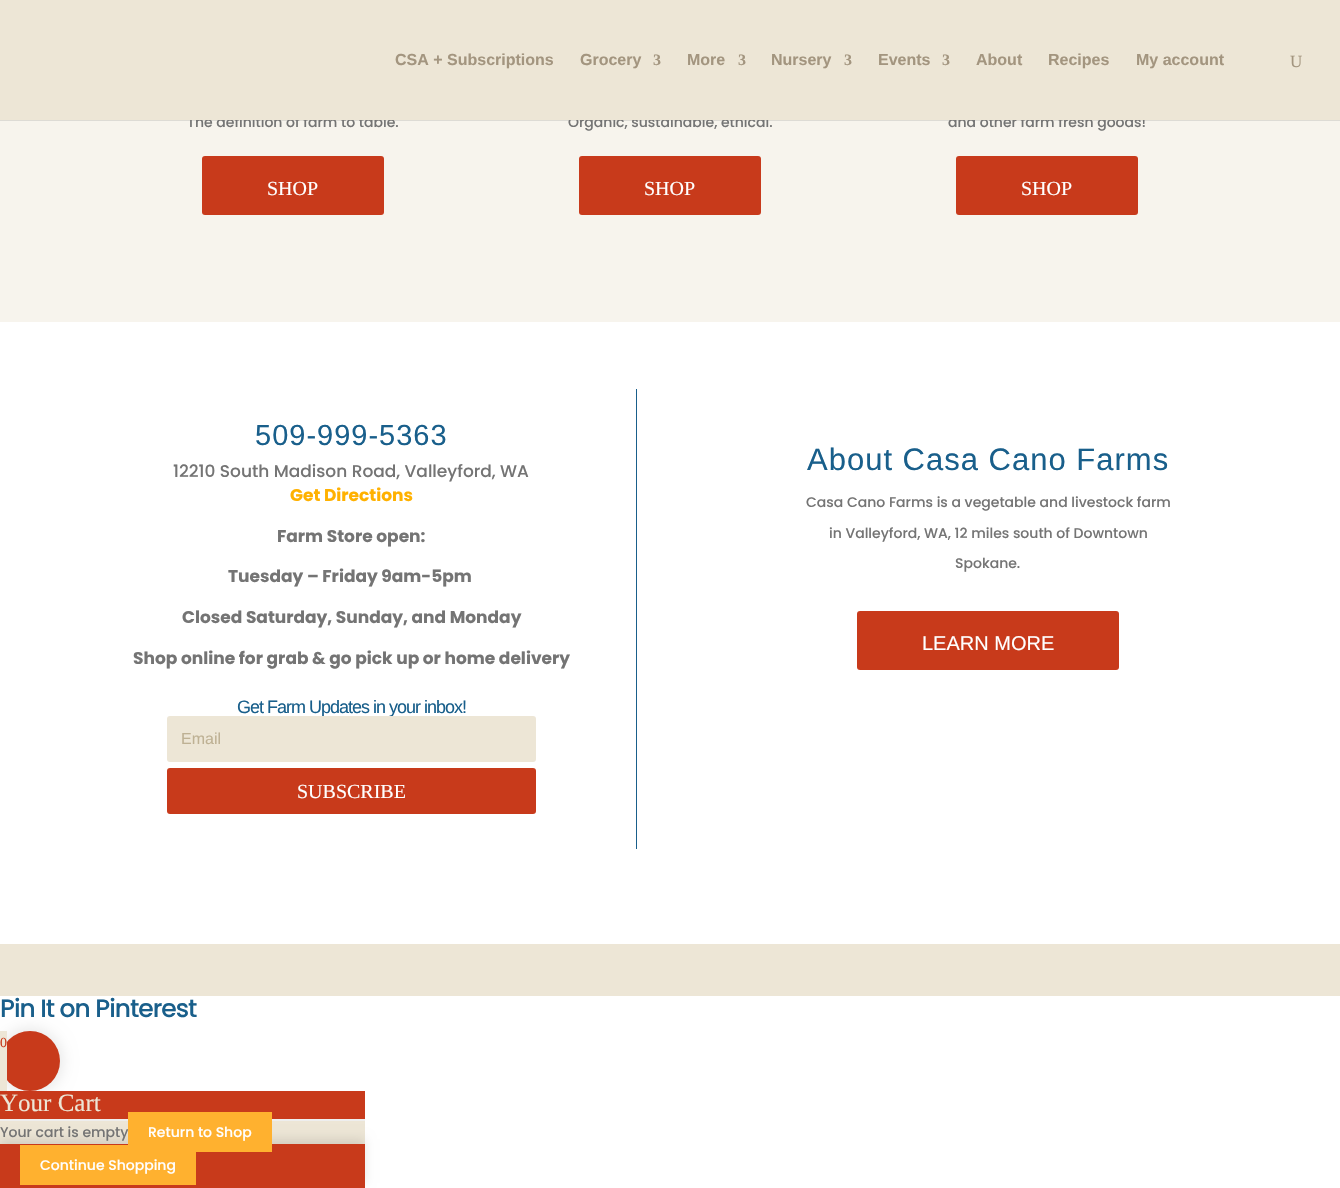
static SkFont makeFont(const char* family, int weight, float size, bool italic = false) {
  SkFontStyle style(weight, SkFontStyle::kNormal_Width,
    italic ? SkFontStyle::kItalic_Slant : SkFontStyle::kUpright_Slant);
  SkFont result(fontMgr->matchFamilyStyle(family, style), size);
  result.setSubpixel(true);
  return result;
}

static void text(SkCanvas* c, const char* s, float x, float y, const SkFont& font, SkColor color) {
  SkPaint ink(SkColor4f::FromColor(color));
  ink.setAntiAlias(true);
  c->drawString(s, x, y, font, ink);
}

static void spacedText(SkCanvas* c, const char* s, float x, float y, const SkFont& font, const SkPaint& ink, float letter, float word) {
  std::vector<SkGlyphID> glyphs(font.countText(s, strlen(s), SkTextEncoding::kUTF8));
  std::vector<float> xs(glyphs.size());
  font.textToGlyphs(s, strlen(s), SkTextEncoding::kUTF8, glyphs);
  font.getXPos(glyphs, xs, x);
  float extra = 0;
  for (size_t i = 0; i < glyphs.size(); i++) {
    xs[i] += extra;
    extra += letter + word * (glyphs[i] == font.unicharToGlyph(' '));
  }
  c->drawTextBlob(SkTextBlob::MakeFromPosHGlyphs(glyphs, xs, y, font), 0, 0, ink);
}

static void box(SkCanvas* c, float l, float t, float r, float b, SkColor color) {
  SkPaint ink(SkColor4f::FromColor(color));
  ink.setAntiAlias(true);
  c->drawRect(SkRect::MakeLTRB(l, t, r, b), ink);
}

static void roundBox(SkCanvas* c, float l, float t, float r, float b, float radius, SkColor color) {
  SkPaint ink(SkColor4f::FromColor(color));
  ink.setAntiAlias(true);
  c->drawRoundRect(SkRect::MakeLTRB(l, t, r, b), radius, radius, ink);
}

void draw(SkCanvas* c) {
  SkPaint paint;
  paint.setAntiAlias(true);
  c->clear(0xffffffff);
  box(c, 0, 120, 1340, 322, 0xfff7f4ed);
  box(c, 0, 120, 1340, 121, 0x1a000000);
  SkFont face1 = makeFont("Poppins", 500, 14);
  text(c, "The definition of farm to table.", 187, 127, face1, 0xff747474);
  text(c, "Organic, sustainable, ethical.", 568, 127, face1, 0xff747474);
  text(c, "and other farm fresh goods!", 948, 127, face1, 0xff747474);
  box(c, 0, 0, 1340, 120, 0xffede6d6);
  SkFont face2 = makeFont("Liberation Sans", 700, 16);
  text(c, "CSA + Subscriptions", 395, 65, face2, 0xffa3957f);
  text(c, "Grocery", 580, 65, face2, 0xffa3957f);
  SkFont face3 = makeFont("Liberation Serif", 700, 16);
  text(c, "3", 653, 65, face3, 0xffa3957f);
  text(c, "More", 687, 65, face2, 0xffa3957f);
  text(c, "3", 738, 65, face3, 0xffa3957f);
  text(c, "Nursery", 771, 65, face2, 0xffa3957f);
  text(c, "3", 844, 65, face3, 0xffa3957f);
  text(c, "Events", 878, 65, face2, 0xffa3957f);
  text(c, "3", 942, 65, face3, 0xffa3957f);
  text(c, "About", 976, 65, face2, 0xffa3957f);
  text(c, "Recipes", 1048, 65, face2, 0xffa3957f);
  text(c, "My account", 1136, 65, face2, 0xffa3957f);
  SkFont face4 = makeFont("Liberation Serif", 400, 17);
  text(c, "U", 1290, 67, face4, 0xffa3957f);
  roundBox(c, 202, 156, 384, 215, 3, 0xffc83a1b);
  SkFont face5 = makeFont("Liberation Serif", 400, 20);
  text(c, "SHOP", 267, 195, face5, 0xffffffff);
  roundBox(c, 579, 156, 761, 215, 3, 0xffc83a1b);
  text(c, "SHOP", 644, 195, face5, 0xffffffff);
  roundBox(c, 956, 156, 1138, 215, 3, 0xffc83a1b);
  text(c, "SHOP", 1021, 195, face5, 0xffffffff);
  box(c, 636, 389, 637, 849, 0xff195f8b);
  SkFont face6 = makeFont("Liberation Sans", 400, 29);
  paint.setColor(0xff195f8b);
  spacedText(c, "509-999-5363", 255, 445, face6, paint, 1, 0);
  SkFont face7 = makeFont("Poppins", 500, 17);
  text(c, "12210 South Madison Road, Valleyford, WA", 173, 477, face7, 0xff747474);
  SkFont face8 = makeFont("Poppins", 700, 17);
  text(c, "Get Directions", 290, 501, face8, 0xffffb100);
  text(c, "Farm Store open:", 277, 542, face8, 0xff747474);
  text(c, "Tuesday – Friday 9am-5pm", 228, 582, face8, 0xff747474);
  text(c, "Closed Saturday, Sunday, and Monday", 182, 623, face8, 0xff747474);
  text(c, "Shop online for grab & go pick up or home delivery", 133, 664, face8, 0xff747474);
  SkFont face9 = makeFont("Liberation Sans", 400, 18);
  spacedText(c, "Get Farm Updates in your inbox!", 237, 713, face9, paint, -1, 0);
  roundBox(c, 167, 716, 536, 762, 3, 0xffede6d6);
  SkFont face10 = makeFont("Liberation Sans", 400, 16);
  text(c, "Email", 181, 744, face10, 0xffbeb194);
  roundBox(c, 167, 768, 536, 814, 3, 0xffc83a1b);
  text(c, "SUBSCRIBE", 297, 798, face5, 0xffffffff);
  SkFont face11 = makeFont("Liberation Sans", 400, 31);
  spacedText(c, "About Casa Cano Farms", 807, 470, face11, paint, 1, 0);
  text(c, "Casa Cano Farms is a vegetable and livestock farm", 806, 507, face1, 0xff747474);
  text(c, "in Valleyford, WA, 12 miles south of Downtown", 829, 538, face1, 0xff747474);
  text(c, "Spokane.", 955, 568, face1, 0xff747474);
  roundBox(c, 857, 611, 1119, 670, 3, 0xffc83a1b);
  SkFont face12 = makeFont("Liberation Sans", 400, 20);
  text(c, "LEARN MORE", 922, 650, face12, 0xffffffff);
  box(c, 0, 944, 1340, 996, 0xffede6d6);
  paint.setColor(0x1a000000);
  paint.setMaskFilter(SkMaskFilter::MakeBlur(kNormal_SkBlurStyle, 7.5f));
  c->drawRoundRect(SkRect::MakeLTRB(-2, 1029, 62, 1093), 32, 32, paint);
  paint.setMaskFilter(nullptr);
  SkFont face13 = makeFont("Poppins", 500, 25);
  paint.setColor(0xff195f8b);
  spacedText(c, "Pin It on Pinterest", 0, 1017, face13, paint, -1, 0);
  paint.setColor(0xffc83a1b);
  c->drawCircle(30, 1061, 30, paint);
  box(c, 0, 1031, 7, 1091, 0xffede6d6);
  SkFont face14 = makeFont("Liberation Serif", 400, 14);
  text(c, "0", 0, 1047, face14, 0xffc83a1b);
  box(c, 0, 1091, 365, 1119, 0xffc83a1b);
  box(c, 0, 1119, 365, 1121, 0xffeeeeee);
  SkFont face15 = makeFont("Liberation Serif", 400, 25);
  text(c, "Your Cart", 0, 1111, face15, 0xffede6d6);
  box(c, 0, 1121, 365, 1144, 0xffede6d6);
  paint.setColor(0x1a000000);
  paint.setMaskFilter(SkMaskFilter::MakeBlur(kNormal_SkBlurStyle, 5));
  c->drawRect(SkRect::MakeLTRB(0, 1139, 365, 1183), paint);
  paint.setMaskFilter(nullptr);
  text(c, "Your cart is empty", 0, 1137, face1, 0xff747474);
  box(c, 0, 1144, 365, 1188, 0xffc83a1b);
  box(c, 128, 1112, 272, 1152, 0xffffb12f);
  text(c, "Return to Shop", 148, 1137, face1, 0xffffffff);
  box(c, 20, 1145, 196, 1185, 0xffffb12f);
  text(c, "Continue Shopping", 40, 1170, face1, 0xffffffff);
}
